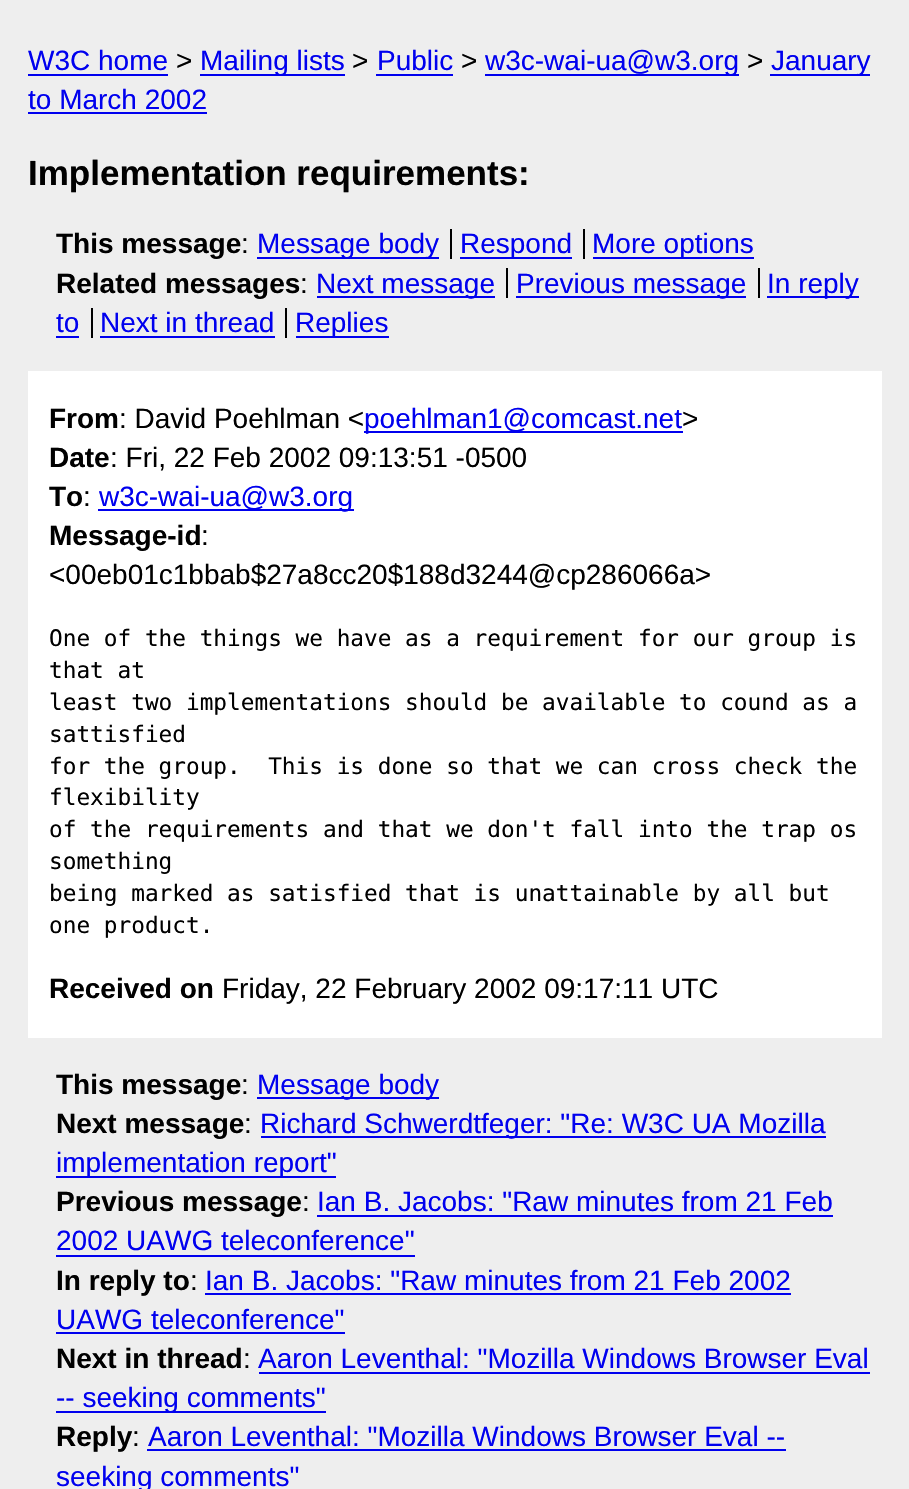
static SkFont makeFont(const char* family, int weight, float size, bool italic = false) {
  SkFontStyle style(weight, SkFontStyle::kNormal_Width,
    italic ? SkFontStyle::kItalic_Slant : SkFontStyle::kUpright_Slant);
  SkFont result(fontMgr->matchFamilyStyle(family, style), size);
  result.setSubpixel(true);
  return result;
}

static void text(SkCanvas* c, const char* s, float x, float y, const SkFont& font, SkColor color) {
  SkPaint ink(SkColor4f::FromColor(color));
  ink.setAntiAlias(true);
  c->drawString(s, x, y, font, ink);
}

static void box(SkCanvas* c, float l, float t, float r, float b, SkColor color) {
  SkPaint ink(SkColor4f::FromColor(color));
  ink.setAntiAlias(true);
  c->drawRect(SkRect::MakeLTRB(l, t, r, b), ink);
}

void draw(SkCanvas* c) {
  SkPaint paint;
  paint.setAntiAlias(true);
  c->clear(0xffeeeeee);
  SkFont face1 = makeFont("Liberation Sans", 400, 28);
  text(c, "W3C home", 28, 70, face1, 0xff0000ee);
  box(c, 28, 74, 168, 76, 0xff0000ee);
  text(c, ">", 176, 70, face1, 0xff000000);
  box(c, 200, 74, 345, 76, 0xff0000ee);
  text(c, "Mailing lists", 200, 70, face1, 0xff0000ee);
  text(c, ">", 352, 70, face1, 0xff000000);
  text(c, "Public", 377, 70, face1, 0xff0000ee);
  box(c, 376, 74, 453, 76, 0xff0000ee);
  text(c, ">", 461, 70, face1, 0xff000000);
  box(c, 485, 74, 739, 76, 0xff0000ee);
  text(c, "w3c-wai-ua@w3.org", 485, 70, face1, 0xff0000ee);
  text(c, ">", 747, 70, face1, 0xff000000);
  box(c, 770, 74, 870, 76, 0xff0000ee);
  text(c, "January", 771, 70, face1, 0xff0000ee);
  text(c, "to March 2002", 28, 109, face1, 0xff0000ee);
  box(c, 28, 112, 207, 114, 0xff0000ee);
  SkFont face2 = makeFont("Liberation Sans", 700, 35);
  text(c, "Implementation requirements:", 28, 185, face2, 0xff000000);
  SkFont face3 = makeFont("Liberation Sans", 700, 28);
  text(c, "This message", 56, 253, face3, 0xff000000);
  text(c, ":", 241, 253, face1, 0xff000000);
  box(c, 257, 257, 439, 259, 0xff0000ee);
  text(c, "Message body", 257, 253, face1, 0xff0000ee);
  box(c, 460, 257, 572, 259, 0xff0000ee);
  text(c, "Respond", 460, 253, face1, 0xff0000ee);
  box(c, 450, 229, 452, 259, 0xff000000);
  box(c, 593, 257, 754, 259, 0xff0000ee);
  text(c, "More options", 592, 253, face1, 0xff0000ee);
  box(c, 583, 229, 585, 259, 0xff000000);
  text(c, "Related messages", 56, 293, face3, 0xff000000);
  text(c, ":", 300, 293, face1, 0xff000000);
  box(c, 317, 296, 495, 298, 0xff0000ee);
  text(c, "Next message", 316, 293, face1, 0xff0000ee);
  box(c, 516, 296, 746, 298, 0xff0000ee);
  text(c, "Previous message", 516, 293, face1, 0xff0000ee);
  box(c, 506, 268, 508, 298, 0xff000000);
  box(c, 767, 296, 859, 298, 0xff0000ee);
  text(c, "In reply", 767, 293, face1, 0xff0000ee);
  box(c, 758, 268, 760, 298, 0xff000000);
  text(c, "to", 56, 332, face1, 0xff0000ee);
  box(c, 56, 336, 79, 338, 0xff0000ee);
  text(c, "Next in thread", 100, 332, face1, 0xff0000ee);
  box(c, 91, 308, 93, 338, 0xff000000);
  box(c, 100, 336, 275, 338, 0xff0000ee);
  box(c, 296, 336, 389, 338, 0xff0000ee);
  text(c, "Replies", 295, 332, face1, 0xff0000ee);
  box(c, 285, 308, 287, 338, 0xff000000);
  box(c, 28, 371, 882, 1038, 0xffffffff);
  text(c, "From", 49, 428, face3, 0xff000000);
  text(c, ": David Poehlman <", 119, 428, face1, 0xff000000);
  box(c, 364, 431, 683, 433, 0xff0000ee);
  text(c, "poehlman1@comcast.net", 364, 428, face1, 0xff0000ee);
  text(c, ">", 682, 428, face1, 0xff000000);
  text(c, "Date", 49, 467, face3, 0xff000000);
  text(c, ": Fri, 22 Feb 2002 09:13:51 -0500", 110, 467, face1, 0xff000000);
  text(c, "To", 49, 506, face3, 0xff000000);
  text(c, ":", 83, 506, face1, 0xff000000);
  box(c, 98, 509, 354, 511, 0xff0000ee);
  text(c, "w3c-wai-ua@w3.org", 99, 506, face1, 0xff0000ee);
  text(c, "Message-id", 49, 545, face3, 0xff000000);
  text(c, ":", 201, 545, face1, 0xff000000);
  text(c, "<00eb01c1bbab$27a8cc20$188d3244@cp286066a>", 49, 584, face1, 0xff000000);
  SkFont face4 = makeFont("DejaVu Sans Mono", 400, 22.75f);
  text(c, "One of the things we have as a requirement for our group is", 49, 646, face4, 0xff000000);
  text(c, "that at", 49, 678, face4, 0xff000000);
  text(c, "least two implementations should be available to cound as a", 49, 710, face4, 0xff000000);
  text(c, "sattisfied", 49, 742, face4, 0xff000000);
  text(c, "for the group.  This is done so that we can cross check the", 49, 774, face4, 0xff000000);
  text(c, "flexibility", 49, 805, face4, 0xff000000);
  text(c, "of the requirements and that we don't fall into the trap os", 49, 837, face4, 0xff000000);
  text(c, "something", 49, 869, face4, 0xff000000);
  text(c, "being marked as satisfied that is unattainable by all but", 49, 901, face4, 0xff000000);
  text(c, "one product.", 49, 933, face4, 0xff000000);
  text(c, "Received on", 49, 998, face3, 0xff000000);
  text(c, "Friday, 22 February 2002 09:17:11 UTC", 222, 998, face1, 0xff000000);
  text(c, "This message", 56, 1094, face3, 0xff000000);
  text(c, ":", 241, 1094, face1, 0xff000000);
  box(c, 257, 1097, 439, 1099, 0xff0000ee);
  text(c, "Message body", 257, 1094, face1, 0xff0000ee);
  text(c, "Next message", 56, 1133, face3, 0xff000000);
  text(c, ":", 244, 1133, face1, 0xff000000);
  box(c, 261, 1136, 826, 1138, 0xff0000ee);
  text(c, "Richard Schwerdtfeger: \"Re: W3C UA Mozilla", 260, 1133, face1, 0xff0000ee);
  box(c, 56, 1176, 336, 1178, 0xff0000ee);
  text(c, "implementation report\"", 56, 1172, face1, 0xff0000ee);
  text(c, "Previous message", 56, 1211, face3, 0xff000000);
  text(c, ":", 302, 1211, face1, 0xff000000);
  text(c, "Ian B. Jacobs: \"Raw minutes from 21 Feb", 317, 1211, face1, 0xff0000ee);
  box(c, 317, 1215, 833, 1217, 0xff0000ee);
  text(c, "2002 UAWG teleconference\"", 56, 1250, face1, 0xff0000ee);
  box(c, 56, 1255, 415, 1257, 0xff0000ee);
  text(c, "In reply to", 56, 1290, face3, 0xff000000);
  text(c, ":", 190, 1290, face1, 0xff000000);
  text(c, "Ian B. Jacobs: \"Raw minutes from 21 Feb 2002", 205, 1290, face1, 0xff0000ee);
  box(c, 205, 1293, 791, 1295, 0xff0000ee);
  text(c, "UAWG teleconference\"", 56, 1329, face1, 0xff0000ee);
  box(c, 56, 1332, 345, 1334, 0xff0000ee);
  text(c, "Next in thread", 56, 1368, face3, 0xff000000);
  text(c, ":", 243, 1368, face1, 0xff000000);
  text(c, "Aaron Leventhal: \"Mozilla Windows Browser Eval", 258, 1368, face1, 0xff0000ee);
  box(c, 259, 1372, 870, 1374, 0xff0000ee);
  box(c, 56, 1411, 326, 1413, 0xff0000ee);
  text(c, "-- seeking comments\"", 56, 1407, face1, 0xff0000ee);
  text(c, "Reply", 56, 1446, face3, 0xff000000);
  text(c, ":", 132, 1446, face1, 0xff000000);
  text(c, "Aaron Leventhal: \"Mozilla Windows Browser Eval --", 148, 1446, face1, 0xff0000ee);
  box(c, 147, 1449, 786, 1451, 0xff0000ee);
  text(c, "seeking comments\"", 56, 1486, face1, 0xff0000ee);
}
